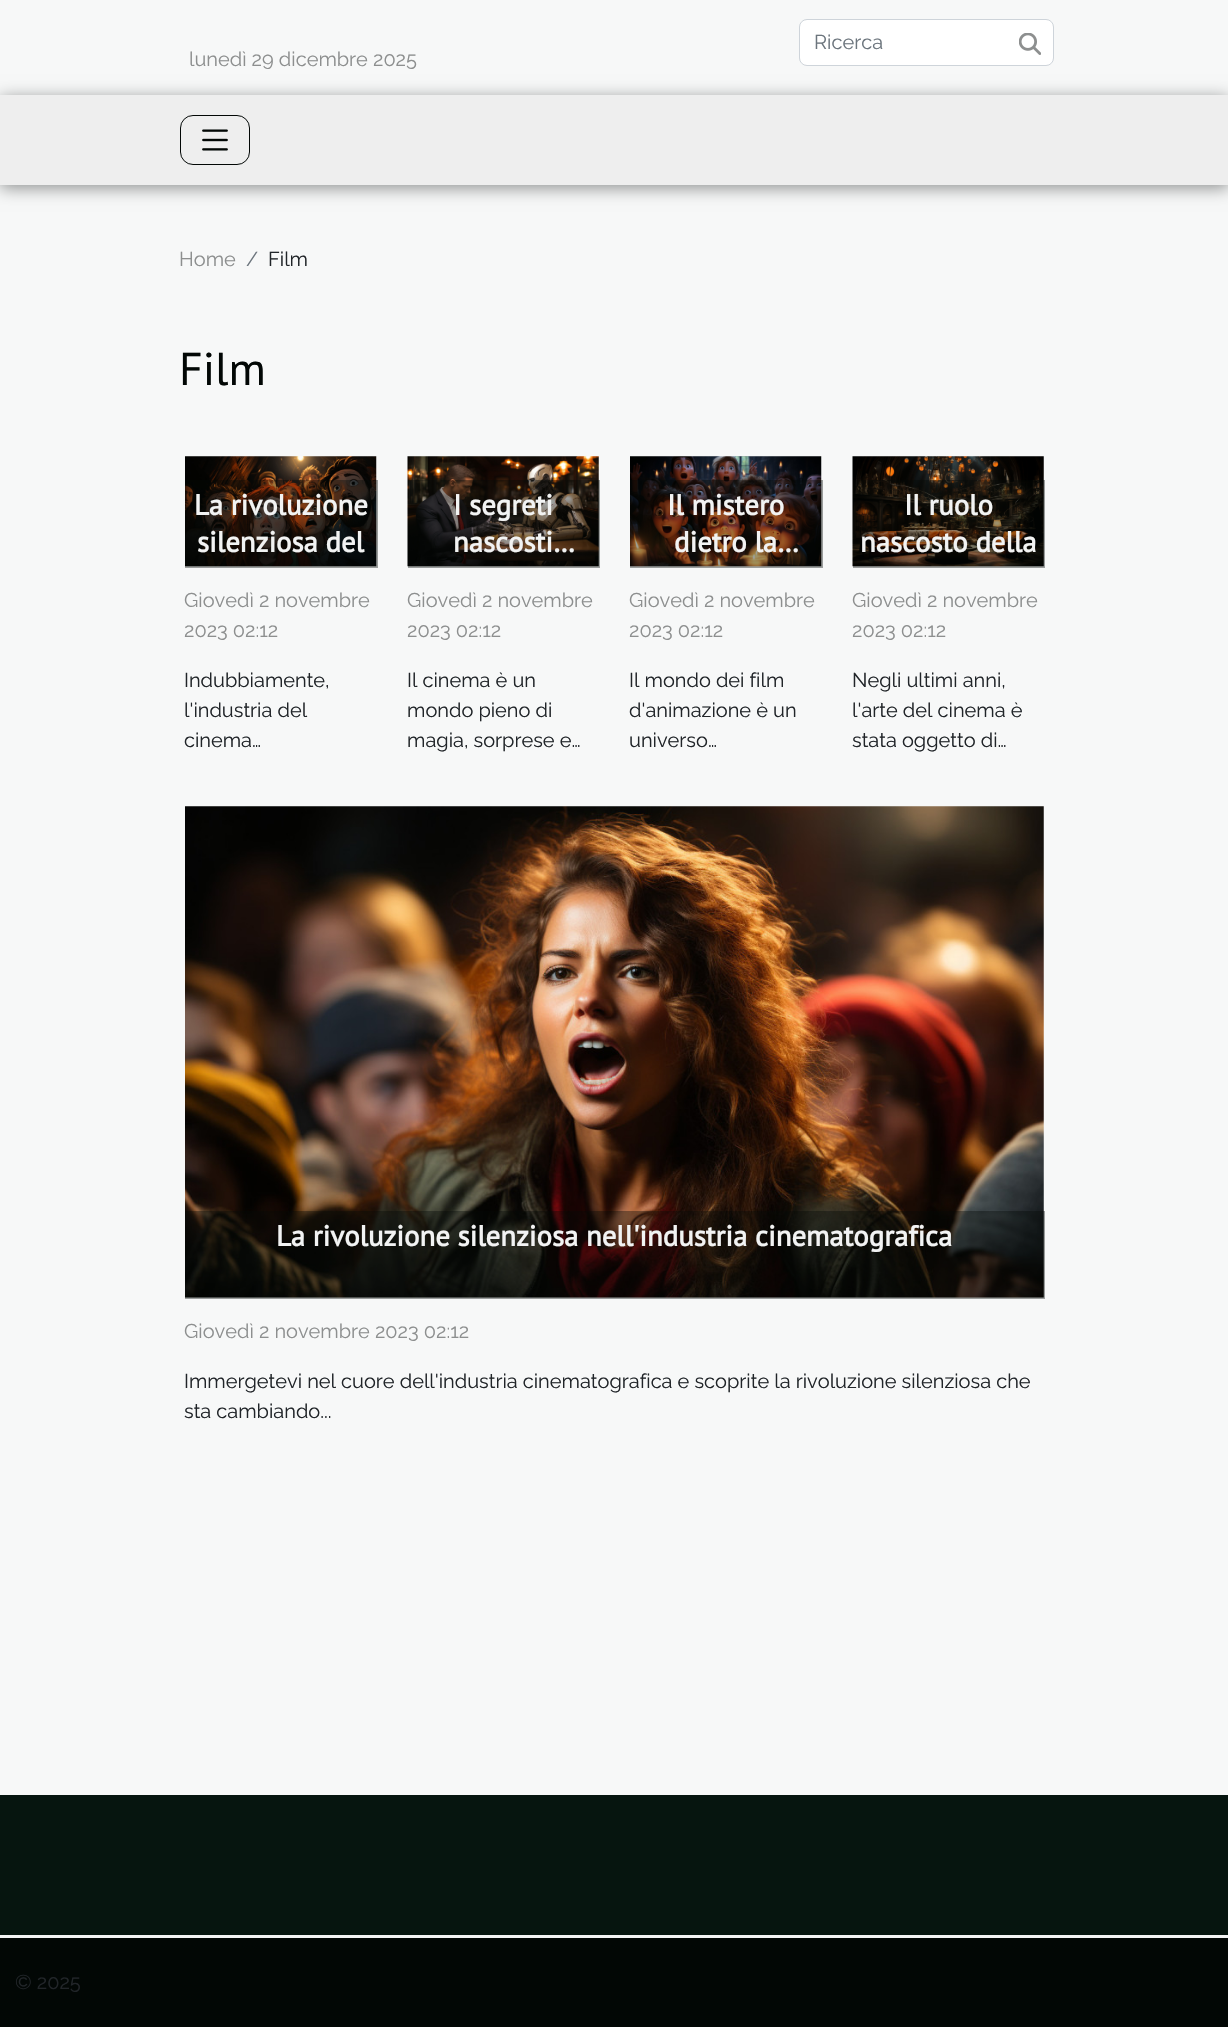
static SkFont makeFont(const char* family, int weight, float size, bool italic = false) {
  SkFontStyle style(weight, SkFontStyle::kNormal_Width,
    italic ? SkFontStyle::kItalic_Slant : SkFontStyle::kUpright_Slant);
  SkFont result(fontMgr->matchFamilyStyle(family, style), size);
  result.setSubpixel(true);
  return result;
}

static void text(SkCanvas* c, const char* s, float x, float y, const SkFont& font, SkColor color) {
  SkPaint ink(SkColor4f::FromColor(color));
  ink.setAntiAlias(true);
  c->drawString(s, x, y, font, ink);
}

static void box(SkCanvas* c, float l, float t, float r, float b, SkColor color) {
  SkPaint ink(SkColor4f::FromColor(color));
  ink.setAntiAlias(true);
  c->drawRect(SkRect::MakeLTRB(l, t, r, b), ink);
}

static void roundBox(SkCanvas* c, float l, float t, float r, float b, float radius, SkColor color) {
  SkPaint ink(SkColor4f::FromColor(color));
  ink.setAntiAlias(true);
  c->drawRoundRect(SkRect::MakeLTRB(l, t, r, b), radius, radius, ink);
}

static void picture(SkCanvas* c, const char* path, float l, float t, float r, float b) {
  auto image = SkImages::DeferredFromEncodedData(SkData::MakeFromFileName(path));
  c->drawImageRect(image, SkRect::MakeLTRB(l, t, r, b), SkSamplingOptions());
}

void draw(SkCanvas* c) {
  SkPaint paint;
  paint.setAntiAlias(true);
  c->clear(0xfff7f8f8);
  roundBox(c, 800, 20, 1053, 65, 6, 0xffffffff);
  paint.setStyle(SkPaint::kStroke_Style);
  paint.setStrokeWidth(1);
  paint.setColor(0xffced4da);
  c->drawRoundRect(SkRect::MakeLTRB(799.5f, 19.5f, 1053.5f, 65.5f), 7.5f, 7.5f, paint);
  SkFont face1 = makeFont("Raleway", 100, 20);
  text(c, "Ricerca", 814, 49, face1, 0xff6c757d);
  picture(c, "img_01.png", 1019, 33, 1041, 55);
  text(c, "lunedì 29 dicembre 2025", 189, 66, face1, 0xff8d8f8f);
  paint.setStyle(SkPaint::kFill_Style);
  paint.setColor(0xff8d8f8f);
  paint.setMaskFilter(SkMaskFilter::MakeBlur(kNormal_SkBlurStyle, 8));
  c->drawRect(SkRect::MakeLTRB(0, 98, 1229, 188), paint);
  paint.setMaskFilter(nullptr);
  box(c, 0, 95, 1228, 185, 0xffeeeeee);
  paint.setStyle(SkPaint::kStroke_Style);
  paint.setColor(0xff020705);
  c->drawRoundRect(SkRect::MakeLTRB(180.5f, 115.5f, 249.5f, 164.5f), 12.5f, 12.5f, paint);
  picture(c, "img_02.png", 202, 129, 228, 151);
  text(c, "Home", 179, 266, face1, 0xff8d8f8f);
  text(c, "/", 246, 266, face1, 0xff6c757d);
  text(c, "Film", 268, 266, face1, 0xff212529);
  SkFont face2 = makeFont("PT Sans", 400, 46);
  text(c, "Film", 179, 385, face2, 0xff020705);
  picture(c, "img_03.png", 185, 456, 377, 567);
  box(c, 185, 480, 378, 568, 0x61020705);
  SkFont face3 = makeFont("PT Sans", 700, 28.75f);
  text(c, "La rivoluzione", 194, 515, face3, 0xfff2f3f3);
  text(c, "silenziosa del", 197, 552, face3, 0xfff2f3f3);
  text(c, "Giovedì 2 novembre", 184, 607, face1, 0xff8d8f8f);
  text(c, "2023 02:12", 184, 637, face1, 0xff8d8f8f);
  text(c, "Indubbiamente,", 184, 687, face1, 0xff212529);
  text(c, "l'industria del", 184, 717, face1, 0xff212529);
  text(c, "cinema…", 184, 747, face1, 0xff212529);
  picture(c, "img_04.png", 407, 456, 599, 567);
  box(c, 408, 480, 600, 568, 0x61020705);
  text(c, "I segreti", 453, 515, face3, 0xfff2f3f3);
  text(c, "nascosti…", 453, 552, face3, 0xfff2f3f3);
  text(c, "Giovedì 2 novembre", 407, 607, face1, 0xff8d8f8f);
  text(c, "2023 02:12", 407, 637, face1, 0xff8d8f8f);
  text(c, "Il cinema è un", 407, 687, face1, 0xff212529);
  text(c, "mondo pieno di", 407, 717, face1, 0xff212529);
  text(c, "magia, sorprese e…", 407, 747, face1, 0xff212529);
  picture(c, "img_05.png", 630, 456, 822, 567);
  box(c, 630, 480, 823, 568, 0x61020705);
  text(c, "Il mistero", 667, 515, face3, 0xfff2f3f3);
  text(c, "dietro la…", 674, 552, face3, 0xfff2f3f3);
  text(c, "Giovedì 2 novembre", 629, 607, face1, 0xff8d8f8f);
  text(c, "2023 02:12", 629, 637, face1, 0xff8d8f8f);
  text(c, "Il mondo dei film", 629, 687, face1, 0xff212529);
  text(c, "d'animazione è un", 629, 717, face1, 0xff212529);
  text(c, "universo…", 629, 747, face1, 0xff212529);
  picture(c, "img_06.png", 852, 456, 1044, 567);
  box(c, 853, 480, 1045, 568, 0x61020705);
  text(c, "Il ruolo", 904, 515, face3, 0xfff2f3f3);
  text(c, "nascosto della", 860, 552, face3, 0xfff2f3f3);
  text(c, "Giovedì 2 novembre", 852, 607, face1, 0xff8d8f8f);
  text(c, "2023 02:12", 852, 637, face1, 0xff8d8f8f);
  text(c, "Negli ultimi anni,", 852, 687, face1, 0xff212529);
  text(c, "l'arte del cinema è", 852, 717, face1, 0xff212529);
  text(c, "stata oggetto di…", 852, 747, face1, 0xff212529);
  picture(c, "img_07.png", 185, 806, 1044, 1298);
  box(c, 185, 1211, 1045, 1299, 0x61020705);
  text(c, "La rivoluzione silenziosa nell'industria cinematografica", 276, 1246, face3, 0xfff2f3f3);
  text(c, "Giovedì 2 novembre 2023 02:12", 184, 1338, face1, 0xff8d8f8f);
  text(c, "Immergetevi nel cuore dell'industria cinematografica e scoprite la rivoluzione silenziosa che", 184, 1388, face1, 0xff212529);
  text(c, "sta cambiando...", 184, 1418, face1, 0xff212529);
  box(c, 0, 1795, 1228, 1935, 0xff06150f);
  box(c, 0, 1938, 1228, 2027, 0xff020705);
  box(c, 0, 1935, 1228, 1938, 0xfff2f3f3);
  text(c, "© 2025", 15, 1989, face1, 0xff212529);
}
